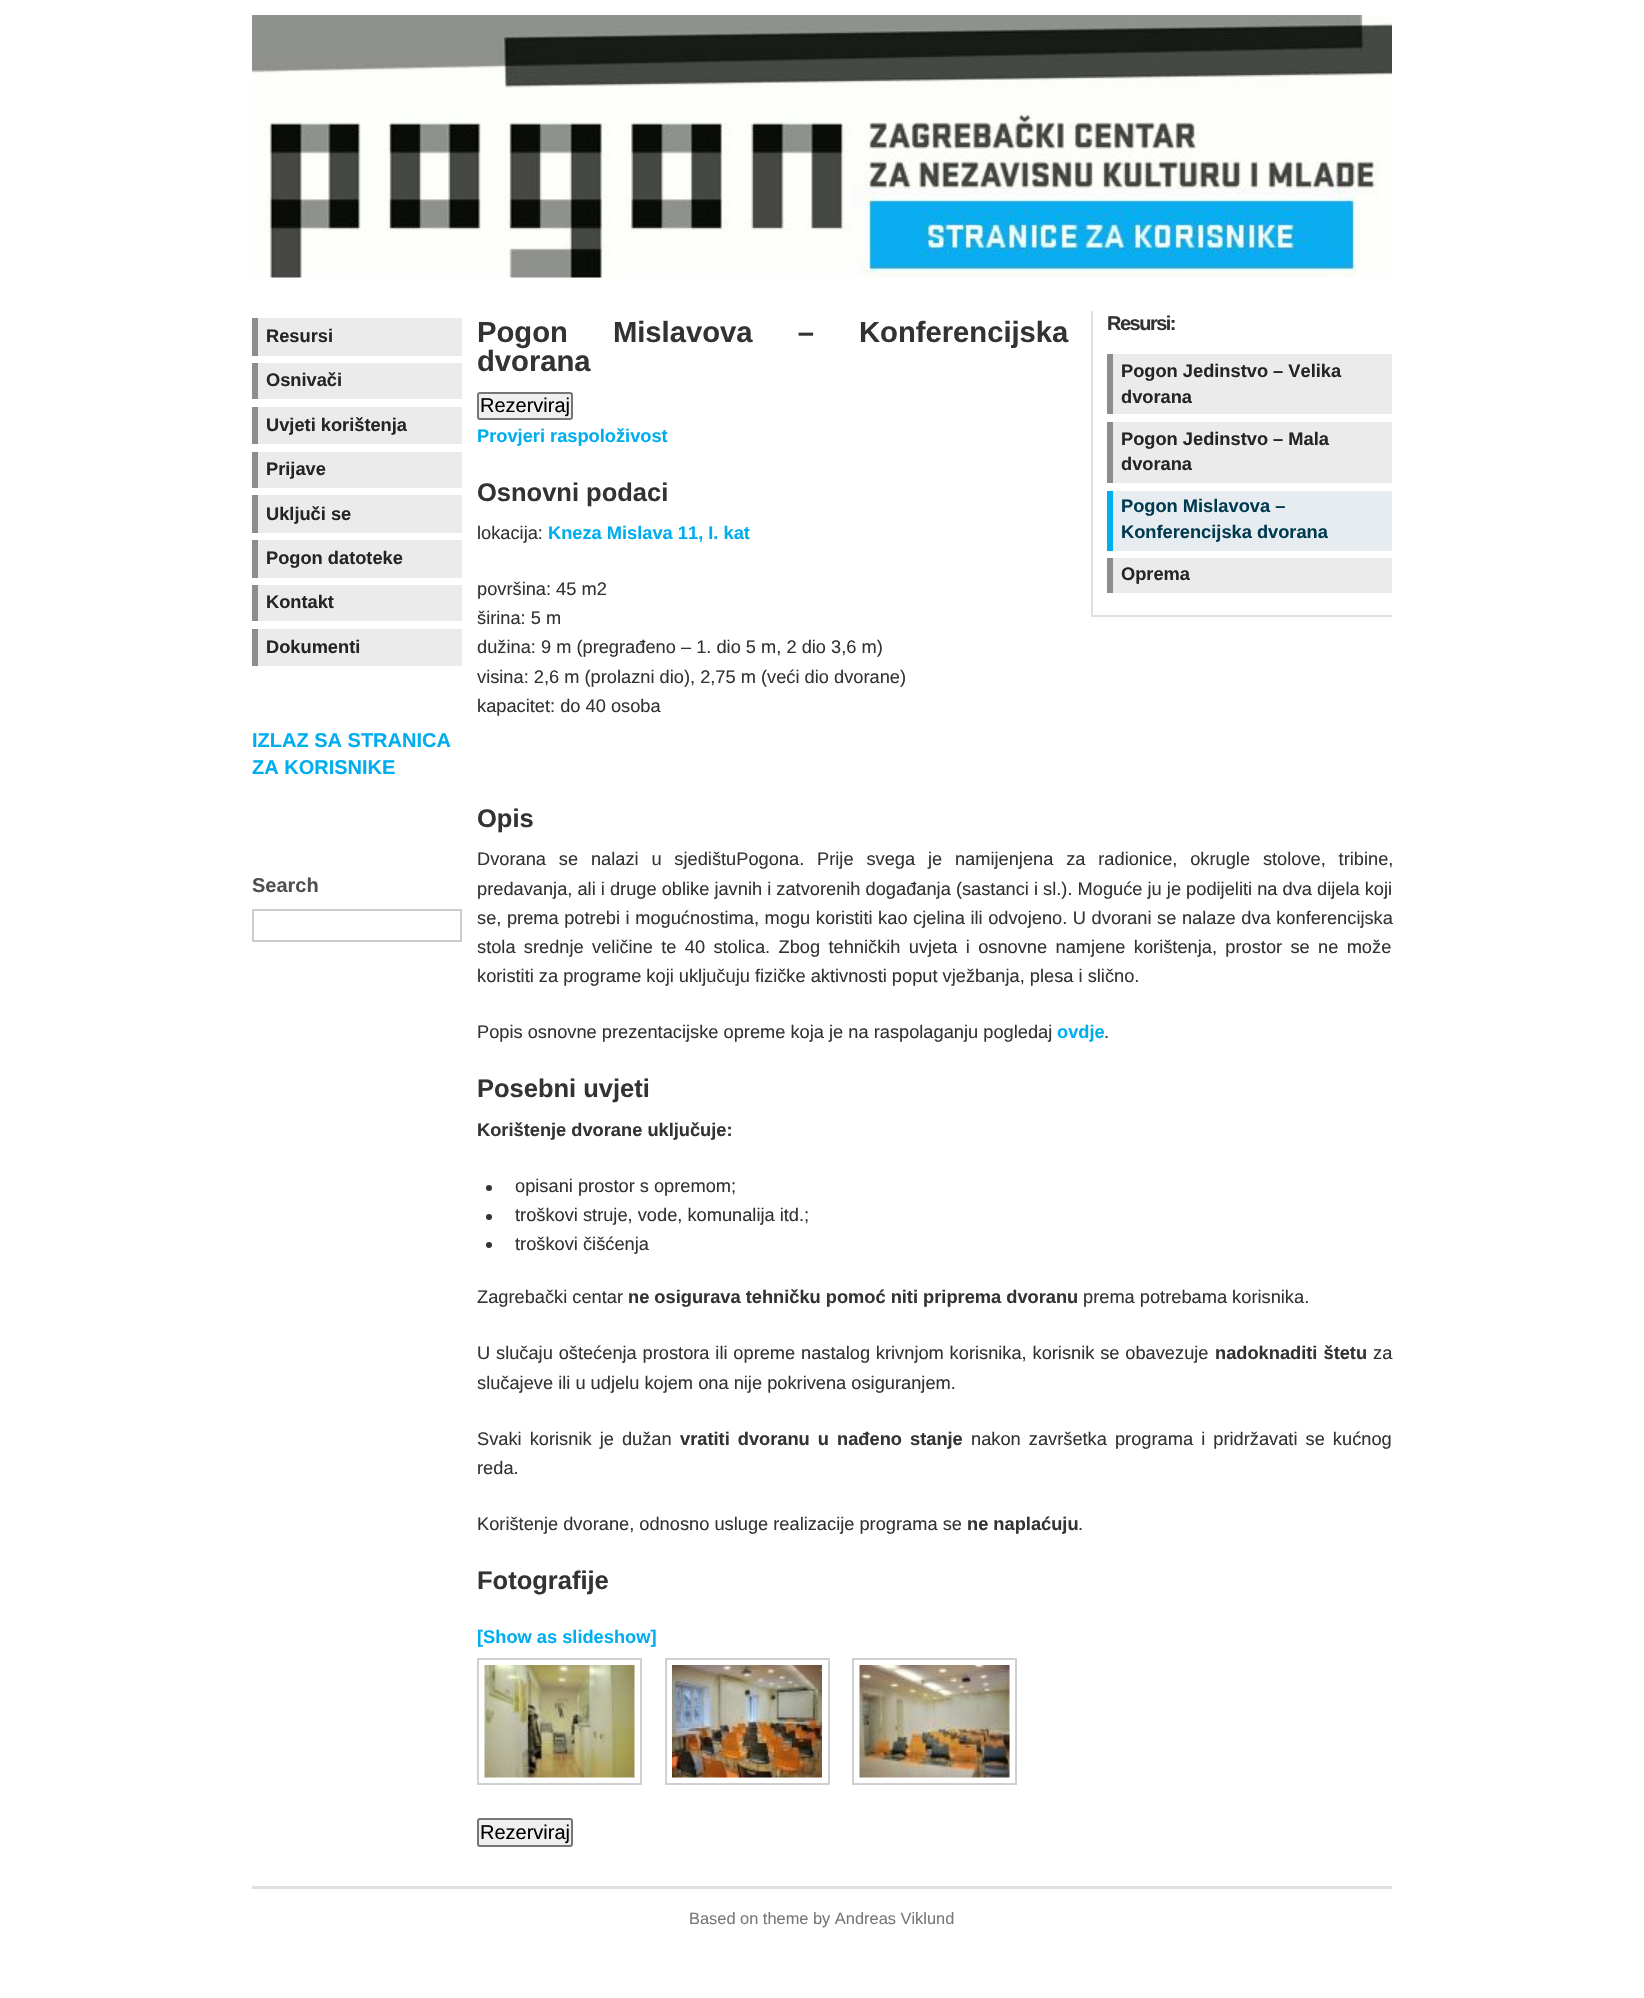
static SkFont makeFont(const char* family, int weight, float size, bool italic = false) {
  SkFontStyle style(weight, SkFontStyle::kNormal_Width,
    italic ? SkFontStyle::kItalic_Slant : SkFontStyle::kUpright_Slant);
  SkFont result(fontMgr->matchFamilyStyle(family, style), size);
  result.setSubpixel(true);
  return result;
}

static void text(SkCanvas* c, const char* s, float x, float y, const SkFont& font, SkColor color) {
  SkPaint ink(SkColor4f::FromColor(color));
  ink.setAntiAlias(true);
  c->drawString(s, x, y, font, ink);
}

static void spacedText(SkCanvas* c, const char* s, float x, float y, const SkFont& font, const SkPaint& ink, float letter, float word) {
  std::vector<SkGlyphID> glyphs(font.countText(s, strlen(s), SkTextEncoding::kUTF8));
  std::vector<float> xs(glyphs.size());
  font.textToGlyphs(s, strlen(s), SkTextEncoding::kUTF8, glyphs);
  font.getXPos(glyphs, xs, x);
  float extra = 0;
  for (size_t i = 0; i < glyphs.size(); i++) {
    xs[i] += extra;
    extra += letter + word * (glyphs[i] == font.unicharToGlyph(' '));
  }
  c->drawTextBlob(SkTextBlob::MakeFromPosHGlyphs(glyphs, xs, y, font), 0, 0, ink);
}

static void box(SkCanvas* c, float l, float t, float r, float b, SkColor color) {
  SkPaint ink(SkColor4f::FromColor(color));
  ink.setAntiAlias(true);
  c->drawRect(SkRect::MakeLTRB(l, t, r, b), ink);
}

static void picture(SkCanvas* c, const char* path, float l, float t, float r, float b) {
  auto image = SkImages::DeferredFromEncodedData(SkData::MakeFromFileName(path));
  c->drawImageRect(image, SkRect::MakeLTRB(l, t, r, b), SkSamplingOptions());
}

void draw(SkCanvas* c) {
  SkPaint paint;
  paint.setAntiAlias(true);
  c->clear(0xffffffff);
  picture(c, "img_01.png", 252, 15, 1392, 278);
  box(c, 258, 318, 462, 356, 0xffebebeb);
  box(c, 252, 318, 258, 356, 0xff8d8d8d);
  SkFont face1 = makeFont("Liberation Sans", 700, 18.25f);
  text(c, "Resursi", 266, 342, face1, 0xff252525);
  box(c, 258, 363, 462, 399, 0xffebebeb);
  box(c, 252, 363, 258, 399, 0xff8d8d8d);
  text(c, "Osnivači", 266, 386, face1, 0xff252525);
  box(c, 258, 407, 462, 444, 0xffebebeb);
  box(c, 252, 407, 258, 444, 0xff8d8d8d);
  text(c, "Uvjeti korištenja", 266, 431, face1, 0xff252525);
  box(c, 258, 452, 462, 488, 0xffebebeb);
  box(c, 252, 452, 258, 488, 0xff8d8d8d);
  text(c, "Prijave", 266, 475, face1, 0xff252525);
  box(c, 258, 495, 462, 533, 0xffebebeb);
  box(c, 252, 495, 258, 533, 0xff8d8d8d);
  text(c, "Uključi se", 266, 520, face1, 0xff252525);
  box(c, 258, 540, 462, 578, 0xffebebeb);
  box(c, 252, 540, 258, 578, 0xff8d8d8d);
  text(c, "Pogon datoteke", 266, 564, face1, 0xff252525);
  box(c, 258, 585, 462, 621, 0xffebebeb);
  box(c, 252, 585, 258, 621, 0xff8d8d8d);
  text(c, "Kontakt", 266, 608, face1, 0xff252525);
  box(c, 258, 629, 462, 666, 0xffebebeb);
  box(c, 252, 629, 258, 666, 0xff8d8d8d);
  text(c, "Dokumenti", 266, 653, face1, 0xff252525);
  SkFont face2 = makeFont("Liberation Sans", 700, 20);
  text(c, "IZLAZ SA STRANICA", 252, 747, face2, 0xff00adef);
  text(c, "ZA KORISNIKE", 252, 774, face2, 0xff00adef);
  text(c, "Search", 252, 892, face2, 0xff505050);
  paint.setStyle(SkPaint::kStroke_Style);
  paint.setStrokeWidth(2);
  paint.setColor(0xffcccccc);
  c->drawRect(SkRect::MakeLTRB(253, 910, 461, 941), paint);
  box(c, 1091, 615, 1392, 617, 0xffe0e0e0);
  box(c, 1091, 311, 1093, 617, 0xffe0e0e0);
  paint.setStyle(SkPaint::kFill_Style);
  paint.setColor(0xff333333);
  spacedText(c, "Resursi:", 1107, 330, face2, paint, -1.5f, 0);
  box(c, 1113, 354, 1392, 414, 0xffebebeb);
  box(c, 1107, 354, 1113, 414, 0xff8d8d8d);
  text(c, "Pogon Jedinstvo – Velika", 1121, 377, face1, 0xff252525);
  text(c, "dvorana", 1121, 403, face1, 0xff252525);
  box(c, 1113, 422, 1392, 483, 0xffebebeb);
  box(c, 1107, 422, 1113, 483, 0xff8d8d8d);
  text(c, "Pogon Jedinstvo – Mala", 1121, 445, face1, 0xff252525);
  text(c, "dvorana", 1121, 470, face1, 0xff252525);
  box(c, 1113, 491, 1392, 551, 0xffe6ecef);
  box(c, 1107, 491, 1113, 551, 0xff00adef);
  text(c, "Pogon Mislavova –", 1121, 512, face1, 0xff003a51);
  text(c, "Konferencijska dvorana", 1121, 538, face1, 0xff003a51);
  box(c, 1113, 558, 1392, 593, 0xffebebeb);
  box(c, 1107, 558, 1113, 593, 0xff8d8d8d);
  text(c, "Oprema", 1121, 580, face1, 0xff252525);
  SkFont face3 = makeFont("Liberation Sans", 700, 29.2f);
  spacedText(c, "Pogon Mislavova – Konferencijska", 477, 342, face3, paint, 0, 37);
  text(c, "dvorana", 477, 371, face3, 0xff333333);
  paint.setColor(0xffefefef);
  c->drawRoundRect(SkRect::MakeLTRB(478, 393, 572, 419), 2, 2, paint);
  paint.setStyle(SkPaint::kStroke_Style);
  paint.setColor(0xff767676);
  c->drawRoundRect(SkRect::MakeLTRB(478, 393, 572, 419), 2, 2, paint);
  SkFont face4 = makeFont("Liberation Sans", 400, 20);
  text(c, "Rezerviraj", 480, 412, face4, 0xff000000);
  text(c, "Provjeri raspoloživost", 477, 442, face1, 0xff00adef);
  SkFont face5 = makeFont("Liberation Sans", 700, 25.5f);
  text(c, "Osnovni podaci", 477, 501, face5, 0xff333333);
  SkFont face6 = makeFont("Liberation Sans", 400, 18.25f);
  text(c, "lokacija:", 477, 539, face6, 0xff333333);
  text(c, "Kneza Mislava 11, I. kat", 548, 539, face1, 0xff00adef);
  text(c, "površina: 45 m2", 477, 595, face6, 0xff333333);
  text(c, "širina: 5 m", 477, 624, face6, 0xff333333);
  text(c, "dužina: 9 m (pregrađeno – 1. dio 5 m, 2 dio 3,6 m)", 477, 653, face6, 0xff333333);
  text(c, "visina: 2,6 m (prolazni dio), 2,75 m (veći dio dvorane)", 477, 683, face6, 0xff333333);
  text(c, "kapacitet: do 40 osoba", 477, 712, face6, 0xff333333);
  text(c, "Opis", 477, 827, face5, 0xff333333);
  paint.setStyle(SkPaint::kFill_Style);
  paint.setColor(0xff333333);
  spacedText(c, "Dvorana se nalazi u sjedištuPogona. Prije svega je namijenjena za radionice, okrugle stolove, tribine,", 477, 865, face6, paint, 0, 7.75f);
  text(c, "predavanja, ali i druge oblike javnih i zatvorenih događanja (sastanci i sl.). Moguće ju je podijeliti na dva dijela koji", 477, 895, face6, 0xff333333);
  spacedText(c, "se, prema potrebi i mogućnostima, mogu koristiti kao cjelina ili odvojeno. U dvorani se nalaze dva konferencijska", 477, 924, face6, paint, 0, 0.5f);
  spacedText(c, "stola srednje veličine te 40 stolica. Zbog tehničkih uvjeta i osnovne namjene korištenja, prostor se ne može", 477, 953, face6, paint, 0, 3.25f);
  text(c, "koristiti za programe koji uključuju fizičke aktivnosti poput vježbanja, plesa i slično.", 477, 982, face6, 0xff333333);
  text(c, "Popis osnovne prezentacijske opreme koja je na raspolaganju pogledaj", 477, 1038, face6, 0xff333333);
  text(c, "ovdje", 1057, 1038, face1, 0xff00adef);
  text(c, ".", 1104, 1038, face6, 0xff333333);
  text(c, "Posebni uvjeti", 477, 1097, face5, 0xff333333);
  text(c, "Korištenje dvorane uključuje:", 477, 1136, face1, 0xff333333);
  c->drawCircle(489, 1188, 3, paint);
  text(c, "opisani prostor s opremom;", 515, 1192, face6, 0xff333333);
  c->drawCircle(489, 1217, 3, paint);
  text(c, "troškovi struje, vode, komunalija itd.;", 515, 1221, face6, 0xff333333);
  c->drawCircle(489, 1245, 3, paint);
  text(c, "troškovi čišćenja", 515, 1250, face6, 0xff333333);
  text(c, "Zagrebački centar", 477, 1303, face6, 0xff333333);
  text(c, "ne osigurava tehničku pomoć niti priprema dvoranu", 628, 1303, face1, 0xff333333);
  text(c, "prema potrebama korisnika.", 1083, 1303, face6, 0xff333333);
  spacedText(c, "U slučaju oštećenja prostora ili opreme nastalog krivnjom korisnika, korisnik se obavezuje", 477, 1359, face6, paint, 0, 0.75f);
  spacedText(c, "nadoknaditi štetu", 1215, 1359, face1, paint, 0, 1);
  text(c, "za", 1373, 1359, face6, 0xff333333);
  text(c, "slučajeve ili u udjelu kojem ona nije pokrivena osiguranjem.", 477, 1389, face6, 0xff333333);
  spacedText(c, "Svaki korisnik je dužan", 477, 1445, face6, paint, 0, 3);
  spacedText(c, "vratiti dvoranu u nađeno stanje", 680, 1445, face1, paint, 0, 3);
  spacedText(c, "nakon završetka programa i pridržavati se kućnog", 971, 1445, face6, paint, 0, 3);
  text(c, "reda.", 477, 1474, face6, 0xff333333);
  text(c, "Korištenje dvorane, odnosno usluge realizacije programa se", 477, 1530, face6, 0xff333333);
  text(c, "ne naplaćuju", 967, 1530, face1, 0xff333333);
  text(c, ".", 1078, 1530, face6, 0xff333333);
  text(c, "Fotografije", 477, 1589, face5, 0xff333333);
  text(c, "[Show as slideshow]", 477, 1643, face1, 0xff00adef);
  paint.setStyle(SkPaint::kStroke_Style);
  paint.setColor(0xffd0d0d0);
  c->drawRect(SkRect::MakeLTRB(478, 1659, 641, 1784), paint);
  picture(c, "img_02.png", 484, 1665, 635, 1778);
  c->drawRect(SkRect::MakeLTRB(666, 1659, 829, 1784), paint);
  picture(c, "img_03.png", 672, 1665, 822, 1778);
  c->drawRect(SkRect::MakeLTRB(853, 1659, 1016, 1784), paint);
  picture(c, "img_04.png", 859, 1665, 1010, 1778);
  paint.setStyle(SkPaint::kFill_Style);
  paint.setColor(0xffefefef);
  c->drawRoundRect(SkRect::MakeLTRB(478, 1819, 572, 1846), 2, 2, paint);
  paint.setStyle(SkPaint::kStroke_Style);
  paint.setColor(0xff767676);
  c->drawRoundRect(SkRect::MakeLTRB(478, 1819, 572, 1846), 2, 2, paint);
  text(c, "Rezerviraj", 480, 1839, face4, 0xff000000);
  box(c, 252, 1886, 1392, 1889, 0xffe0e0e0);
  SkFont face7 = makeFont("Liberation Sans", 400, 16.4f);
  text(c, "Based on theme by Andreas Viklund", 689, 1924, face7, 0xff777777);
}
